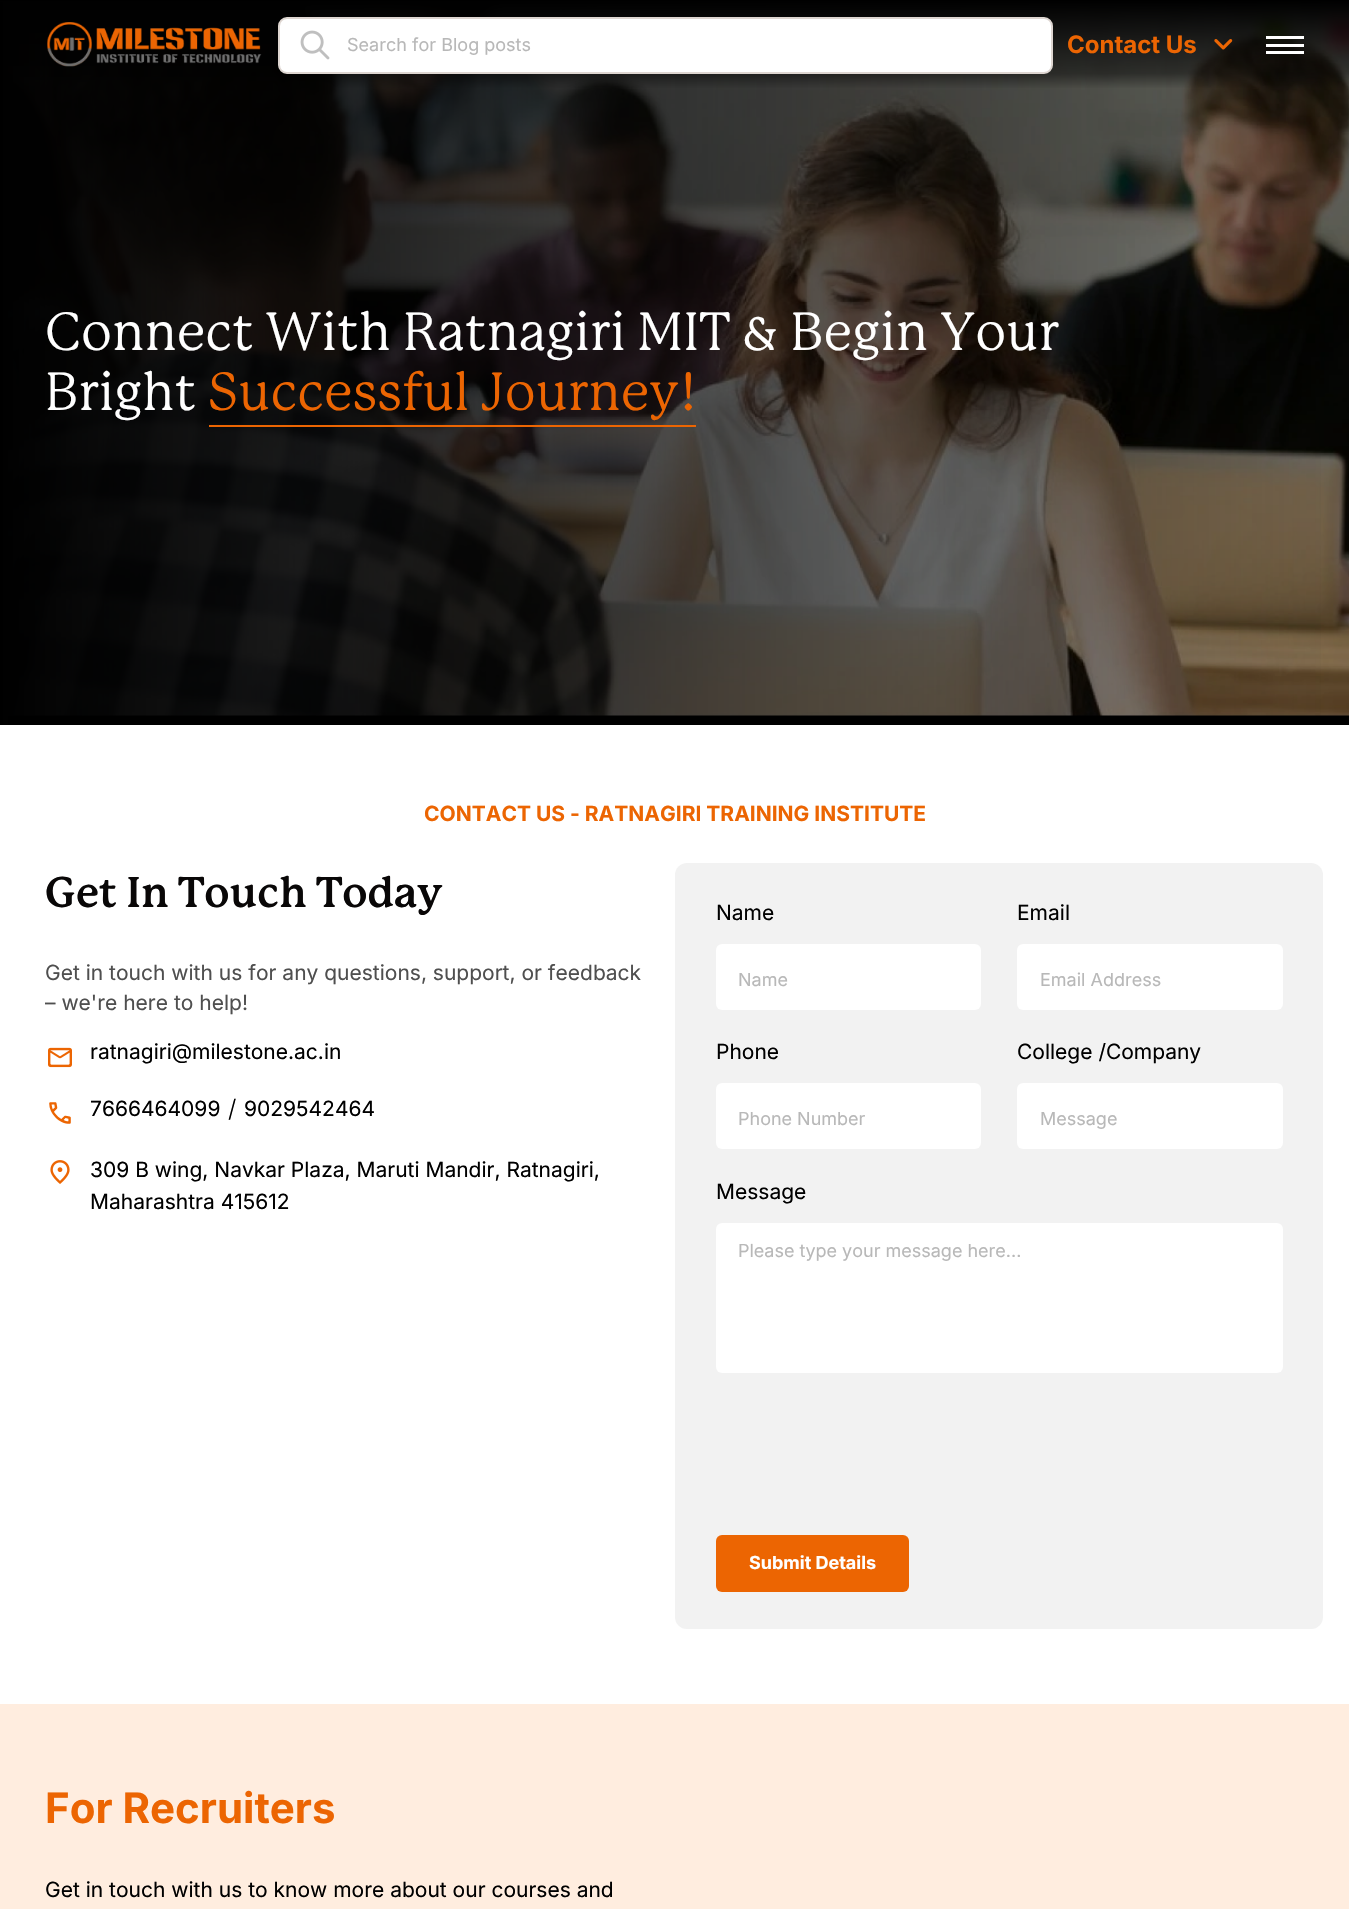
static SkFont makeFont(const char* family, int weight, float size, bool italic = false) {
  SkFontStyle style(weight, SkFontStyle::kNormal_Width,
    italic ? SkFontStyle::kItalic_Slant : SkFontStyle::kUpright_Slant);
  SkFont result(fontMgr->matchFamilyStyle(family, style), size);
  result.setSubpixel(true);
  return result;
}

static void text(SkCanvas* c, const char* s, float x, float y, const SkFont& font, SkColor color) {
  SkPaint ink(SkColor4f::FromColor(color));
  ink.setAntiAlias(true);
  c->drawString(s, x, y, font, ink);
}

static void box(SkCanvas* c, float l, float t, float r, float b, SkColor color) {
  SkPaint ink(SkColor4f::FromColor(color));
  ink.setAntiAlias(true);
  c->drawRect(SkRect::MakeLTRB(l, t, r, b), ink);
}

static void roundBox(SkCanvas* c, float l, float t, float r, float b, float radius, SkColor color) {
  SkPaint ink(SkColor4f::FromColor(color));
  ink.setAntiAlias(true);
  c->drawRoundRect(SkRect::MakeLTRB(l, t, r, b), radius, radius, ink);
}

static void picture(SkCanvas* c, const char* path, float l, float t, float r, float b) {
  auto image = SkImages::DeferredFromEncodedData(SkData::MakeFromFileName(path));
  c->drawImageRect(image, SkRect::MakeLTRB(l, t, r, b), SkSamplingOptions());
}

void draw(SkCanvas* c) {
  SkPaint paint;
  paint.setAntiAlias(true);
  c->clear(0xffffffff);
  box(c, 8, 2, 1349, 725, 0xff000000);
  picture(c, "img_04.png", 8, 2, 1349, 716);
  {
    const SkColor colors[] = {0xff000000, 0x8a000000, 0x38000000, 0x00000000};
    const float stops[] = {0, 0.46f, 0.78f, 1};
    const SkPoint ends[] = {{0, 362}, {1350, 362}};
    paint.setShader(SkGradientShader::MakeLinear(ends, colors, stops, 4, SkTileMode::kClamp));
    paint.setAlpha(255);
  }
  c->drawRect(SkRect::MakeLTRB(0, 2, 1321, 725), paint);
  {
    const SkColor colors[] = {0x00000000, 0x6e000000, 0xff000000};
    const float stops[] = {0, 0.17f, 0.99f};
    const SkPoint ends[] = {{675, 89}, {675, 0}};
    paint.setShader(SkGradientShader::MakeLinear(ends, colors, stops, 3, SkTileMode::kClamp));
    paint.setAlpha(255);
  }
  c->drawRect(SkRect::MakeLTRB(0, 0, 1349, 88), paint);
  picture(c, "img_01.png", 47, 22, 262, 67);
  paint.setShader(nullptr);
  paint.setColor(0xffffffff);
  c->drawRoundRect(SkRect::MakeLTRB(279, 18, 1052, 73), 8, 8, paint);
  paint.setStyle(SkPaint::kStroke_Style);
  paint.setStrokeWidth(2);
  paint.setColor(0xffded6d1);
  c->drawRoundRect(SkRect::MakeLTRB(279, 18, 1052, 73), 8, 8, paint);
  picture(c, "img_02.png", 300, 30, 330, 60);
  SkFont face1 = makeFont("Inter", 400, 18);
  text(c, "Search for Blog posts", 347, 51, face1, 0xffb8b8b8);
  SkFont face2 = makeFont("Inter", 700, 24);
  text(c, "Contact Us", 1067, 53, face2, 0xffec6502);
  picture(c, "img_03.png", 1214, 39, 1233, 50);
  box(c, 1266, 36, 1304, 39, 0xffffffff);
  box(c, 1266, 44, 1304, 47, 0xffffffff);
  box(c, 1266, 51, 1304, 54, 0xffffffff);
  SkFont face3 = makeFont("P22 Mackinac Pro", 400, 52.5f);
  text(c, "Connect With Ratnagiri MIT & Begin Your", 45, 350, face3, 0xffffffff);
  text(c, "Bright", 45, 410, face3, 0xffffffff);
  text(c, "Successful Journey!", 208, 410, face3, 0xffec6502);
  box(c, 209, 425, 696, 427, 0xffec6502);
  SkFont face4 = makeFont("Inter", 700, 21);
  text(c, "CONTACT US - RATNAGIRI TRAINING INSTITUTE", 424, 821, face4, 0xffec6502);
  SkFont face5 = makeFont("P22 Mackinac Pro", 700, 42);
  text(c, "Get In Touch Today", 45, 907, face5, 0xff090707);
  SkFont face6 = makeFont("Inter", 400, 21);
  text(c, "Get in touch with us for any questions, support, or feedback", 45, 980, face6, 0xff4f4f4f);
  text(c, "– we're here to help!", 45, 1010, face6, 0xff4f4f4f);
  picture(c, "img_05.png", 48, 1047, 72, 1068);
  text(c, "ratnagiri@milestone.ac.in", 90, 1059, face6, 0xff000000);
  picture(c, "img_06.png", 49, 1102, 71, 1124);
  text(c, "7666464099", 90, 1116, face6, 0xff000000);
  SkFont face7 = makeFont("Inter", 300, 24);
  text(c, "/", 228, 1117, face7, 0xff000000);
  text(c, "9029542464", 244, 1116, face6, 0xff000000);
  picture(c, "img_07.png", 50, 1160, 70, 1184);
  text(c, "309 B wing, Navkar Plaza, Maruti Mandir, Ratnagiri,", 90, 1177, face6, 0xff000000);
  text(c, "Maharashtra 415612", 90, 1209, face6, 0xff000000);
  roundBox(c, 675, 863, 1323, 1629, 12, 0xfff2f2f2);
  text(c, "Name", 716, 920, face6, 0xff000000);
  roundBox(c, 716, 944, 981, 1010, 6, 0xffffffff);
  text(c, "Name", 738, 986, face1, 0xffb8b8b8);
  text(c, "Email", 1017, 920, face6, 0xff000000);
  roundBox(c, 1017, 944, 1283, 1010, 6, 0xffffffff);
  text(c, "Email Address", 1040, 986, face1, 0xffb8b8b8);
  text(c, "Phone", 716, 1059, face6, 0xff000000);
  roundBox(c, 716, 1083, 981, 1149, 6, 0xffffffff);
  text(c, "Phone Number", 738, 1125, face1, 0xffb8b8b8);
  text(c, "College /Company", 1017, 1059, face6, 0xff000000);
  roundBox(c, 1017, 1083, 1283, 1149, 6, 0xffffffff);
  text(c, "Message", 1040, 1125, face1, 0xffb8b8b8);
  text(c, "Message", 716, 1199, face6, 0xff000000);
  roundBox(c, 716, 1223, 1283, 1373, 6, 0xffffffff);
  text(c, "Please type your message here...", 738, 1257, face1, 0xffb8b8b8);
  roundBox(c, 716, 1535, 909, 1592, 6, 0xffec6502);
  SkFont face8 = makeFont("Inter", 700, 18);
  text(c, "Submit Details", 749, 1569, face8, 0xffffffff);
  box(c, 0, 1704, 1349, 1909, 0xffffeddf);
  SkFont face9 = makeFont("Inter", 700, 42);
  text(c, "For Recruiters", 45, 1823, face9, 0xffec6502);
  text(c, "Get in touch with us to know more about our courses and", 45, 1897, face6, 0xff000000);
}
